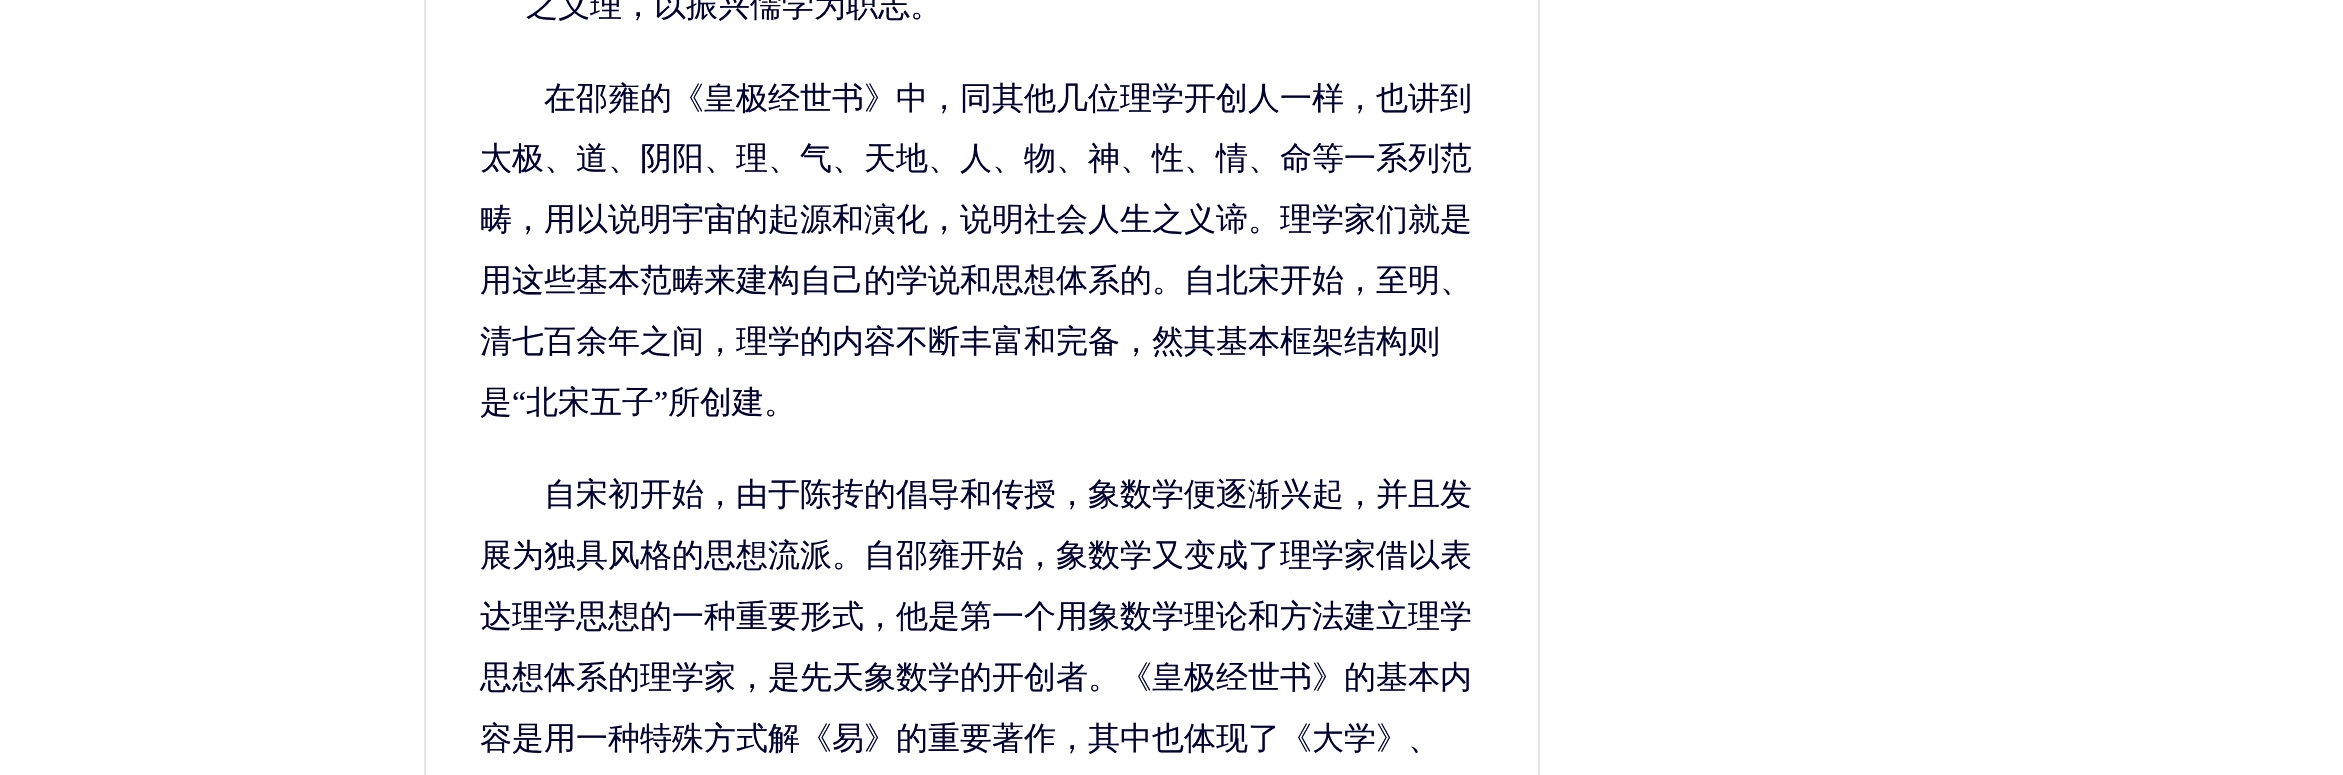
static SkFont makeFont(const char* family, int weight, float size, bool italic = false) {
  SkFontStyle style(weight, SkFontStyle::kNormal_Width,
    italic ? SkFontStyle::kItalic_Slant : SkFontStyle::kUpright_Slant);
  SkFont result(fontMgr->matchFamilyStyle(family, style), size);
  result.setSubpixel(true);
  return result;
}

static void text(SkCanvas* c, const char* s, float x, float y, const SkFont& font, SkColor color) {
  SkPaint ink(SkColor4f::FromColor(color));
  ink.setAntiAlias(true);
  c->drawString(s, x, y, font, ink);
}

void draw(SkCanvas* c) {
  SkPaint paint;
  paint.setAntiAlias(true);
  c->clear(0xffffffff);
  paint.setStyle(SkPaint::kStroke_Style);
  paint.setStrokeWidth(2);
  paint.setColor(0xffe5e5e7);
  c->drawRect(SkRect::MakeLTRB(425, -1, 1539, 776), paint);
  SkFont face1 = makeFont("WenQuanYi Zen Hei", 500, 32);
  text(c, "之义理，以振兴儒学为职志。", 526, 16, face1, 0xff000033);
  text(c, "在邵雍的《皇极经世书》中，同其他几位理学开创人一样，也讲到", 544, 109, face1, 0xff000033);
  text(c, "太极、道、阴阳、理、气、天地、人、物、神、性、情、命等一系列范", 480, 169, face1, 0xff000033);
  text(c, "畴，用以说明宇宙的起源和演化，说明社会人生之义谛。理学家们就是", 480, 230, face1, 0xff000033);
  text(c, "用这些基本范畴来建构自己的学说和思想体系的。自北宋开始，至明、", 480, 291, face1, 0xff000033);
  text(c, "清七百余年之间，理学的内容不断丰富和完备，然其基本框架结构则", 480, 352, face1, 0xff000033);
  text(c, "是", 480, 413, face1, 0xff000033);
  SkFont face2 = makeFont("Liberation Serif", 400, 32);
  text(c, "“", 512, 413, face2, 0xff000033);
  text(c, "北宋五子", 526, 413, face1, 0xff000033);
  text(c, "”", 654, 413, face2, 0xff000033);
  text(c, "所创建。", 668, 413, face1, 0xff000033);
  text(c, "自宋初开始，由于陈抟的倡导和传授，象数学便逐渐兴起，并且发", 544, 505, face1, 0xff000033);
  text(c, "展为独具风格的思想流派。自邵雍开始，象数学又变成了理学家借以表", 480, 566, face1, 0xff000033);
  text(c, "达理学思想的一种重要形式，他是第一个用象数学理论和方法建立理学", 480, 627, face1, 0xff000033);
  text(c, "思想体系的理学家，是先天象数学的开创者。《皇极经世书》的基本内", 480, 688, face1, 0xff000033);
  text(c, "容是用一种特殊方式解《易》的重要著作，其中也体现了《大学》、", 480, 749, face1, 0xff000033);
}
